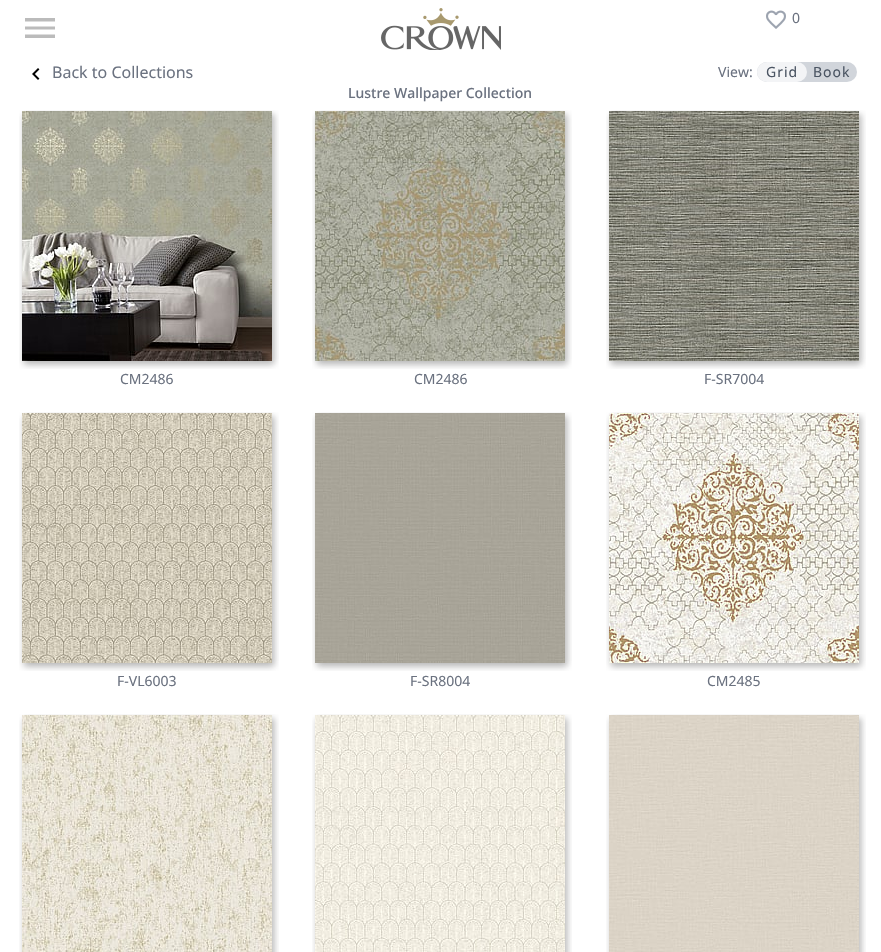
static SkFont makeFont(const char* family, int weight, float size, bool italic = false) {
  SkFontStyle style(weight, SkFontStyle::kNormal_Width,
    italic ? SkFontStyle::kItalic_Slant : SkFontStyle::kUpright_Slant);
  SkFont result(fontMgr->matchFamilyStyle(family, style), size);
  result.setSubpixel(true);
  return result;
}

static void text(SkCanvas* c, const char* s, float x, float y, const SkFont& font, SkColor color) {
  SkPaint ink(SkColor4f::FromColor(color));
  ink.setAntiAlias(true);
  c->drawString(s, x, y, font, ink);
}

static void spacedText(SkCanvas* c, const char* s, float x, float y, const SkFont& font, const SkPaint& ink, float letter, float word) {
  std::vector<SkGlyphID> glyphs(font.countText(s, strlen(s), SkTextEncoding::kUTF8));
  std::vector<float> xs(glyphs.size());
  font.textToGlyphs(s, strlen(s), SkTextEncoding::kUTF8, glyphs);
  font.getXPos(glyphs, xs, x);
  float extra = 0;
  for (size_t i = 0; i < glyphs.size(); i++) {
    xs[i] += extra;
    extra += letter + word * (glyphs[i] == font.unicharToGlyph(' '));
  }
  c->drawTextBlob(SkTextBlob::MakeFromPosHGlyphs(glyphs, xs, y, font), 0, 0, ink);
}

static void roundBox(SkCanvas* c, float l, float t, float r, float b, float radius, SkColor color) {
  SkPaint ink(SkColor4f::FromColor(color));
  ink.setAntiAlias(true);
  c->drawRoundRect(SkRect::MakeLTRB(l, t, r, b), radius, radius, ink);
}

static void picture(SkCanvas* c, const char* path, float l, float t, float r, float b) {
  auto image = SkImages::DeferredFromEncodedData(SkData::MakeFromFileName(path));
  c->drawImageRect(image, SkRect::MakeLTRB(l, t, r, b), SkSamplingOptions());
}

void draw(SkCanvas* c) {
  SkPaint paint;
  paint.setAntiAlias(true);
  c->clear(0xffffffff);
  paint.setColor(0xffbbbbbb);
  c->drawPath(SkPathBuilder().moveTo(25, 38).lineTo(55, 38).lineTo(55, 34.5f).lineTo(25, 34.5f).close().moveTo(25, 29.5f).lineTo(55, 29.5f).lineTo(55, 26.5f).lineTo(25, 26.5f).close().moveTo(25, 18).lineTo(25, 21.5f).lineTo(55, 21.5f).lineTo(55, 18).close().detach(), paint);
  picture(c, "img_01.png", 381, 8, 501, 50);
  picture(c, "img_02.png", 766, 10, 786, 29);
  SkFont face1 = makeFont("Noto Sans", 400, 14);
  text(c, "0", 792, 23, face1, 0xff6b7280);
  picture(c, "img_03.png", 32, 68, 40, 80);
  SkFont face2 = makeFont("Noto Sans", 400, 16);
  text(c, "Back to Collections", 52, 78, face2, 0xff6b7280);
  text(c, "View:", 718, 77, face1, 0xff6b7280);
  roundBox(c, 757, 62, 857, 82, 10, 0xffd1d5db);
  roundBox(c, 757, 62, 807, 82, 10, 0xfff3f4f6);
  paint.setColor(0xff4b5563);
  spacedText(c, "Grid", 766, 77, face1, paint, 1, 0);
  spacedText(c, "Book", 813, 77, face1, paint, 1, 0);
  SkFont face3 = makeFont("Noto Sans", 500, 14);
  text(c, "Lustre Wallpaper Collection", 348, 98, face3, 0xff6b7280);
  picture(c, "img_04.png", 19, 110, 279, 369);
  text(c, "CM2486", 120, 384, face1, 0xff6b7280);
  picture(c, "img_05.png", 312, 110, 572, 369);
  text(c, "CM2486", 414, 384, face1, 0xff6b7280);
  picture(c, "img_06.png", 606, 110, 866, 369);
  text(c, "F-SR7004", 704, 384, face1, 0xff6b7280);
  picture(c, "img_07.png", 19, 412, 279, 671);
  text(c, "F-VL6003", 117, 686, face1, 0xff6b7280);
  picture(c, "img_08.png", 312, 412, 572, 671);
  text(c, "F-SR8004", 410, 686, face1, 0xff6b7280);
  picture(c, "img_09.png", 606, 412, 866, 671);
  text(c, "CM2485", 707, 686, face1, 0xff6b7280);
  picture(c, "img_10.png", 19, 714, 279, 952);
  picture(c, "img_11.png", 312, 714, 572, 952);
  picture(c, "img_12.png", 606, 714, 866, 952);
}
